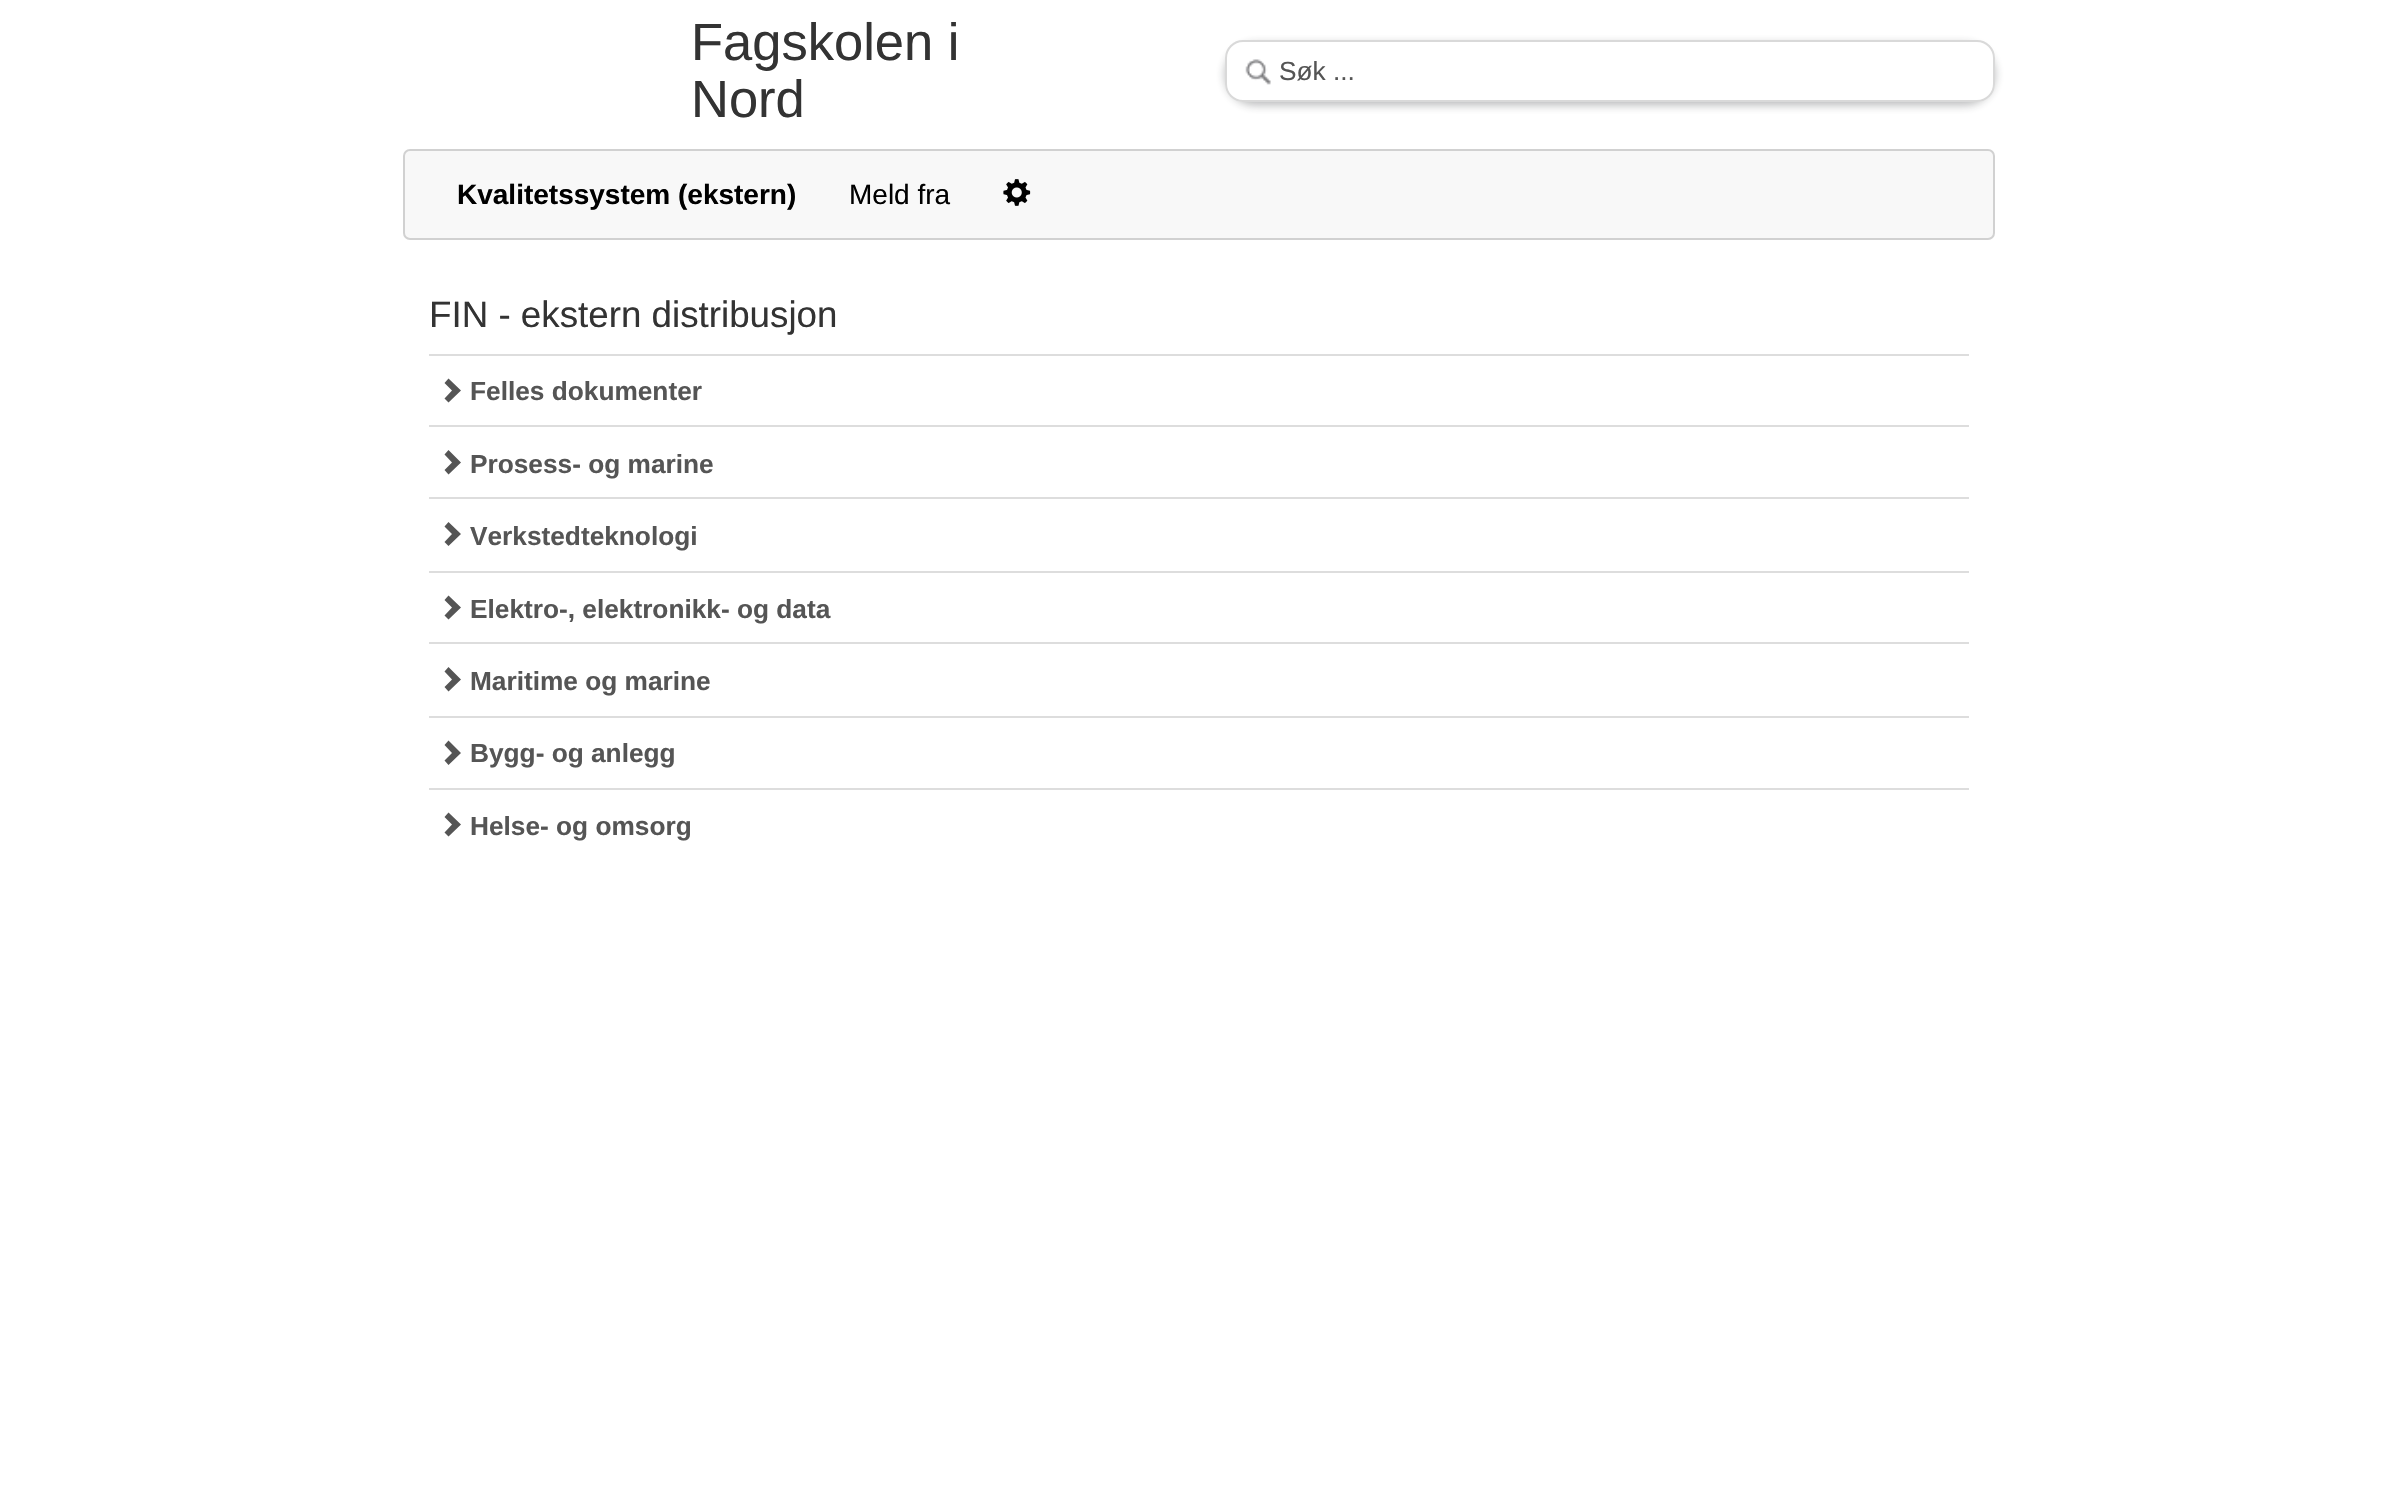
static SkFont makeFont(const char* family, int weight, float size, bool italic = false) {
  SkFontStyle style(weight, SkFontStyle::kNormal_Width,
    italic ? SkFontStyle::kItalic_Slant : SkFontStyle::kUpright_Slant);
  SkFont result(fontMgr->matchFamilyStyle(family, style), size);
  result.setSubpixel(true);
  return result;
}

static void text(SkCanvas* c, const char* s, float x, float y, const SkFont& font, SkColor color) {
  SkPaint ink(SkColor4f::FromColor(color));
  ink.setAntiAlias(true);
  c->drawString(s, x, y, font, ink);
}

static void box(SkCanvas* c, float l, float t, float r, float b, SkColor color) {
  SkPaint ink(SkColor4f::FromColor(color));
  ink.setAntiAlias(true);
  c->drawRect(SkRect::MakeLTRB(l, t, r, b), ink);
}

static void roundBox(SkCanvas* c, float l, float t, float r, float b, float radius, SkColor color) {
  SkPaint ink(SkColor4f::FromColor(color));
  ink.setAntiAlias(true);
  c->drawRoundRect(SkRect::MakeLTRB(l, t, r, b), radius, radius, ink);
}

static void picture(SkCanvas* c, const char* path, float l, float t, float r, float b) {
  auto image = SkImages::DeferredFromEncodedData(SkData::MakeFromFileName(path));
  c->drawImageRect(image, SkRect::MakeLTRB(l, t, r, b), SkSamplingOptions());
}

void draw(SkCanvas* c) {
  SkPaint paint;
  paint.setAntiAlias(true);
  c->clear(0xffffffff);
  SkFont face1 = makeFont("Liberation Sans", 400, 52.5f);
  text(c, "Fagskolen i", 691, 60, face1, 0xff333333);
  text(c, "Nord", 691, 117, face1, 0xff333333);
  paint.setColor(0x52202124);
  paint.setMaskFilter(SkMaskFilter::MakeBlur(kNormal_SkBlurStyle, 5));
  c->drawRoundRect(SkRect::MakeLTRB(1225, 44, 1995, 105), 30.5f, 30.5f, paint);
  paint.setMaskFilter(nullptr);
  roundBox(c, 1225, 40, 1995, 102, 18, 0xffffffff);
  picture(c, "img_01.png", 1245, 59, 1271, 85);
  paint.setStyle(SkPaint::kStroke_Style);
  paint.setStrokeWidth(2);
  paint.setColor(0xffd9d9d9);
  c->drawRoundRect(SkRect::MakeLTRB(1226, 41, 1994, 101), 17, 17, paint);
  SkFont face2 = makeFont("Liberation Sans", 400, 26.25f);
  text(c, "Søk ...", 1279, 80, face2, 0xff555555);
  paint.setStyle(SkPaint::kFill_Style);
  paint.setColor(0xfff8f8f8);
  c->drawRoundRect(SkRect::MakeLTRB(404, 150, 1994, 239), 6, 6, paint);
  paint.setStyle(SkPaint::kStroke_Style);
  paint.setColor(0xffd1d1d1);
  c->drawRoundRect(SkRect::MakeLTRB(404, 150, 1994, 239), 6, 6, paint);
  SkFont face3 = makeFont("Liberation Sans", 700, 28);
  text(c, "Kvalitetssystem (ekstern)", 457, 204, face3, 0xff000000);
  SkFont face4 = makeFont("Liberation Sans", 400, 28);
  text(c, "Meld fra", 849, 204, face4, 0xff000000);
  picture(c, "img_02.png", 1003, 179, 1031, 206);
  SkFont face5 = makeFont("Liberation Sans", 400, 36.75f);
  text(c, "FIN - ekstern distribusjon", 429, 327, face5, 0xff333333);
  box(c, 429, 354, 1969, 356, 0xffdddddd);
  paint.setStyle(SkPaint::kFill_Style);
  paint.setColor(0xff555555);
  c->drawPath(SkPathBuilder().moveTo(461, 390.5f).lineTo(448.5f, 402.5f).lineTo(444.5f, 398.5f).lineTo(452, 390.5f).lineTo(444.5f, 383).lineTo(448.5f, 378.5f).close().detach(), paint);
  SkFont face6 = makeFont("Liberation Sans", 700, 26.25f);
  text(c, "Felles dokumenter", 470, 400, face6, 0xff555555);
  box(c, 429, 425, 1969, 427, 0xffdddddd);
  c->drawPath(SkPathBuilder().moveTo(461, 462.5f).lineTo(448.5f, 474.5f).lineTo(444.5f, 470).lineTo(452, 462.5f).lineTo(444.5f, 454.5f).lineTo(448.5f, 450).close().detach(), paint);
  text(c, "Prosess- og marine", 470, 473, face6, 0xff555555);
  box(c, 429, 497, 1969, 499, 0xffdddddd);
  c->drawPath(SkPathBuilder().moveTo(461, 534).lineTo(448.5f, 546).lineTo(444.5f, 542).lineTo(452, 534).lineTo(444.5f, 526.5f).lineTo(448.5f, 522).close().detach(), paint);
  text(c, "Verkstedteknologi", 470, 545, face6, 0xff555555);
  box(c, 429, 571, 1969, 573, 0xffdddddd);
  c->drawPath(SkPathBuilder().moveTo(461, 607.5f).lineTo(448.5f, 619.5f).lineTo(444.5f, 615.5f).lineTo(452, 607.5f).lineTo(444.5f, 600).lineTo(448.5f, 595.5f).close().detach(), paint);
  text(c, "Elektro-, elektronikk- og data", 470, 618, face6, 0xff555555);
  box(c, 429, 642, 1969, 644, 0xffdddddd);
  c->drawPath(SkPathBuilder().moveTo(461, 679.5f).lineTo(448.5f, 691.5f).lineTo(444.5f, 687).lineTo(452, 679.5f).lineTo(444.5f, 671.5f).lineTo(448.5f, 667).close().detach(), paint);
  text(c, "Maritime og marine", 470, 690, face6, 0xff555555);
  box(c, 429, 716, 1969, 718, 0xffdddddd);
  c->drawPath(SkPathBuilder().moveTo(461, 753).lineTo(448.5f, 765).lineTo(444.5f, 760.5f).lineTo(452, 753).lineTo(444.5f, 745).lineTo(448.5f, 740.5f).close().detach(), paint);
  text(c, "Bygg- og anlegg", 470, 762, face6, 0xff555555);
  box(c, 429, 788, 1969, 790, 0xffdddddd);
  c->drawPath(SkPathBuilder().moveTo(461, 824.5f).lineTo(448.5f, 836.5f).lineTo(444.5f, 832.5f).lineTo(452, 824.5f).lineTo(444.5f, 817).lineTo(448.5f, 812.5f).close().detach(), paint);
  text(c, "Helse- og omsorg", 470, 835, face6, 0xff555555);
}
